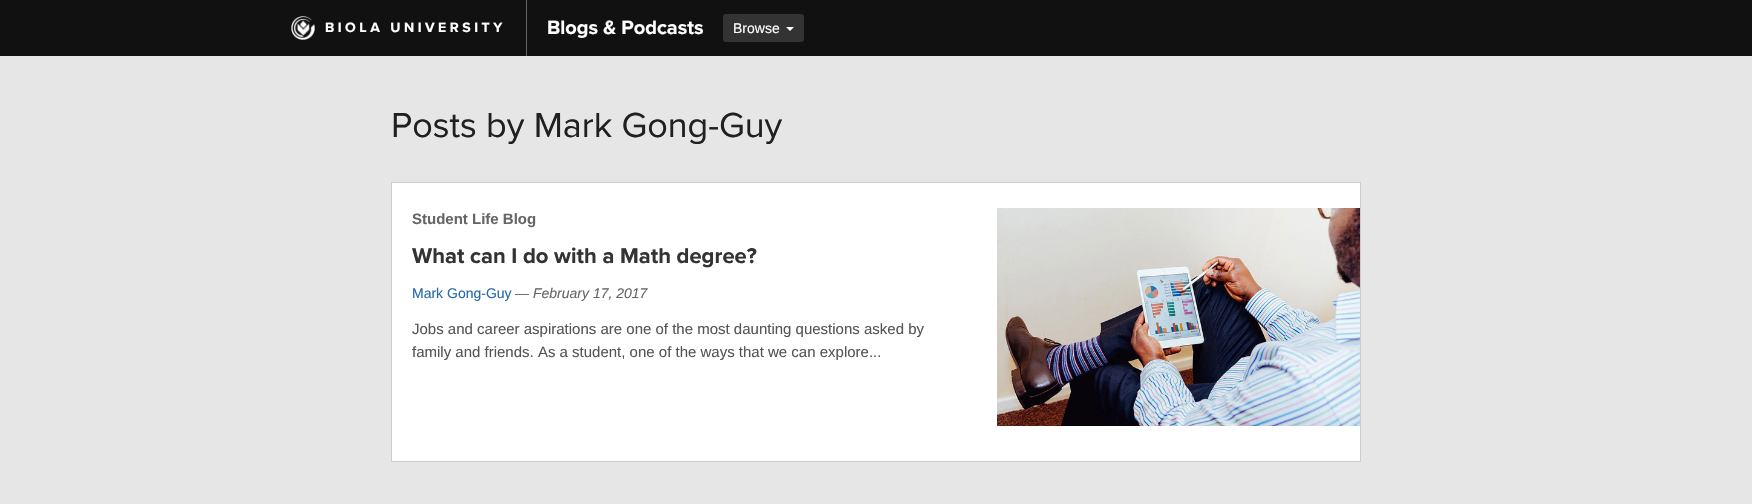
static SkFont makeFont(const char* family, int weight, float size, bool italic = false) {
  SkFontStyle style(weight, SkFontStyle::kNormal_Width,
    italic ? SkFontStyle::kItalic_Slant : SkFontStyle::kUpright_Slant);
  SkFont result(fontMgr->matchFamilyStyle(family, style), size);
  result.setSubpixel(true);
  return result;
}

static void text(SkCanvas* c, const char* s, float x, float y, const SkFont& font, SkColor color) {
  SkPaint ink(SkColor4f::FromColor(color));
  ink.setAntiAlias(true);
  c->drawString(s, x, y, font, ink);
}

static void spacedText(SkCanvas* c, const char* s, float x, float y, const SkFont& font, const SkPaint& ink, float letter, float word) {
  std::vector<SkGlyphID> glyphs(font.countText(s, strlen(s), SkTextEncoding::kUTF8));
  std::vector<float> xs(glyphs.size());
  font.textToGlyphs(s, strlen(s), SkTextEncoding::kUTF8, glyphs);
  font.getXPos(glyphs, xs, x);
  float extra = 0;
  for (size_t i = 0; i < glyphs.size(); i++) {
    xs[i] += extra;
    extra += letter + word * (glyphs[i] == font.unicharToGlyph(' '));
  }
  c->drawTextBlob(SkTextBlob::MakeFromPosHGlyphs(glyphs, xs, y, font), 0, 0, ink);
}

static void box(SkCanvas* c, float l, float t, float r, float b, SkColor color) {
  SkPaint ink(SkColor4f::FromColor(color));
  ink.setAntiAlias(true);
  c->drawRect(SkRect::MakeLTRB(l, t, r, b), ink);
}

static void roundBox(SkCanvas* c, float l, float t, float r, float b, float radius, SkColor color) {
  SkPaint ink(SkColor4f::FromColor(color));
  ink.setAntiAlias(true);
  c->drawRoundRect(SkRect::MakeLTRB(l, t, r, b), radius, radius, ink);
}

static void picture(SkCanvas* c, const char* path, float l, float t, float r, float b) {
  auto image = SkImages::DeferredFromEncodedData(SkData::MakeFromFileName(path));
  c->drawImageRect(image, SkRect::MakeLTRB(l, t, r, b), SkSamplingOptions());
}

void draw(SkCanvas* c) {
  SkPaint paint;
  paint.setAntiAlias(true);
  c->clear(0xff111111);
  picture(c, "img_01.png", 291, 16, 315, 40);
  SkFont face1 = makeFont("Proxima Nova", 700, 14);
  paint.setColor(0xffffffff);
  spacedText(c, "BIOLA UNIVERSITY", 325, 32, face1, paint, 3.5f, 0);
  box(c, 526, 0, 527, 56, 0xff666666);
  SkFont face2 = makeFont("Proxima Nova", 700, 20);
  text(c, "Blogs & Podcasts", 547, 34, face2, 0xffffffff);
  roundBox(c, 723, 14, 804, 42, 3, 0xff333333);
  SkFont face3 = makeFont("Liberation Sans", 400, 14);
  text(c, "Browse", 733, 33, face3, 0xffffffff);
  c->drawPath(SkPathBuilder().moveTo(786, 27).lineTo(794, 27).lineTo(790, 31).close().detach(), paint);
  box(c, 0, 56, 1752, 504, 0xffe6e6e6);
  SkFont face4 = makeFont("Proxima Nova", 400, 36);
  text(c, "Posts by Mark Gong-Guy", 391, 137, face4, 0xff221f1f);
  c->drawRect(SkRect::MakeLTRB(391.5f, 182.5f, 1360.5f, 461.5f), paint);
  paint.setStyle(SkPaint::kStroke_Style);
  paint.setStrokeWidth(1);
  paint.setColor(0xffcccccc);
  c->drawRect(SkRect::MakeLTRB(391.5f, 182.5f, 1360.5f, 461.5f), paint);
  SkFont face5 = makeFont("Liberation Sans", 700, 15);
  text(c, "Student Life Blog", 412, 224, face5, 0xff666666);
  SkFont face6 = makeFont("Proxima Nova", 700, 22);
  text(c, "What can I do with a Math degree?", 412, 263, face6, 0xff333333);
  text(c, "Mark Gong-Guy", 412, 298, face3, 0xff2268ab);
  text(c, "—", 515, 298, face3, 0xff666666);
  SkFont face7 = makeFont("Liberation Sans", 400, 14, true);
  text(c, "February 17, 2017", 533, 298, face7, 0xff666666);
  SkFont face8 = makeFont("Liberation Sans", 400, 15);
  text(c, "Jobs and career aspirations are one of the most daunting questions asked by", 412, 334, face8, 0xff555555);
  text(c, "family and friends. As a student, one of the ways that we can explore...", 412, 357, face8, 0xff555555);
  picture(c, "img_02.png", 997, 208, 1360, 426);
}
